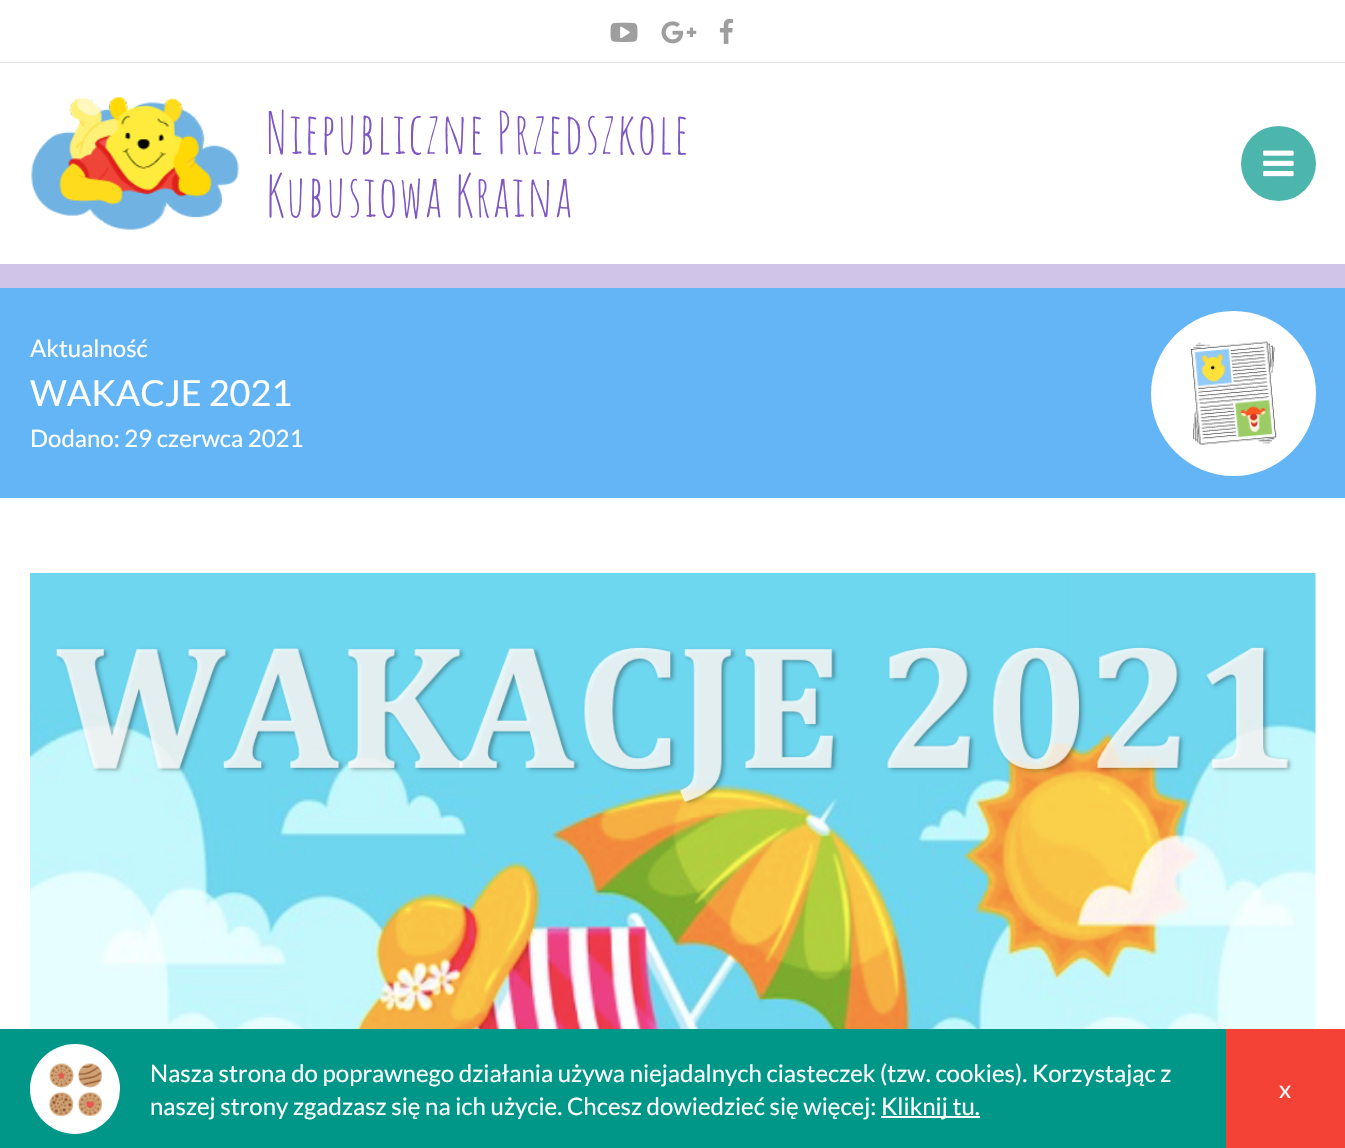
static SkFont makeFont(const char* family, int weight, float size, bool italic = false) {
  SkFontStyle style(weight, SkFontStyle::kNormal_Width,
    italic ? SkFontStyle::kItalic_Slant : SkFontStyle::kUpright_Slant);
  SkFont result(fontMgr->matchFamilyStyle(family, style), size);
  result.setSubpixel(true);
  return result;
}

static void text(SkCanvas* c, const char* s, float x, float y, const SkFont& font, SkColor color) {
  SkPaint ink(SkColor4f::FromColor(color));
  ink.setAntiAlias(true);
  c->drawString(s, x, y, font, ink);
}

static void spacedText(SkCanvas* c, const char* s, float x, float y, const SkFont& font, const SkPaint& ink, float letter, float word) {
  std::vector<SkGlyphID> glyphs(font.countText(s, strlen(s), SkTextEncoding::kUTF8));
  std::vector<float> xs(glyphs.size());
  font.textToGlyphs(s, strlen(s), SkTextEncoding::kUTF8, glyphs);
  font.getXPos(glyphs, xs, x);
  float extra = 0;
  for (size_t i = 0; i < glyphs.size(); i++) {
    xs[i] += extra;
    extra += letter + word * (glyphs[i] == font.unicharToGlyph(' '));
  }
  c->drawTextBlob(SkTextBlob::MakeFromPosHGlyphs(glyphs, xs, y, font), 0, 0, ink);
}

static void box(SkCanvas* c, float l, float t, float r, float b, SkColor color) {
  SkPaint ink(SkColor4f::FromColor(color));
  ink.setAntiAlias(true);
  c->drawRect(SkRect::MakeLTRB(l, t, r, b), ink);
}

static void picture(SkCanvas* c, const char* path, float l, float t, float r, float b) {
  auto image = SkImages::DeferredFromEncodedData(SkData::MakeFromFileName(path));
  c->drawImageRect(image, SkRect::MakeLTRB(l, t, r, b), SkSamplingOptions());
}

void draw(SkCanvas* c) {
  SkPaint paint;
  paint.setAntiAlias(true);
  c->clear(0xffffffff);
  box(c, 0, 62, 1345, 63, 0xffe0e0e0);
  picture(c, "img_01.png", 610, 22, 638, 42);
  picture(c, "img_02.png", 661, 21, 697, 44);
  picture(c, "img_03.png", 719, 18, 733, 44);
  box(c, 0, 264, 1345, 288, 0xffd1c4e9);
  picture(c, "img_04.png", 31, 97, 239, 230);
  SkFont face1 = makeFont("Amatic SC", 400, 57);
  paint.setColor(0xff7e57c2);
  spacedText(c, "Niepubliczne Przedszkole", 266, 154, face1, paint, 1.5f, 0);
  spacedText(c, "Kubusiowa Kraina", 266, 217, face1, paint, 1.5f, 0);
  paint.setColor(0xff4db6ac);
  c->drawCircle(1278.5f, 163.5f, 37.5f, paint);
  picture(c, "img_05.png", 1263, 150, 1294, 177);
  box(c, 0, 288, 1345, 498, 0xff64b5f6);
  SkFont face2 = makeFont("Lato", 400, 24);
  text(c, "Aktualność", 30, 357, face2, 0xffffffff);
  SkFont face3 = makeFont("Lato", 400, 36);
  text(c, "WAKACJE 2021", 30, 406, face3, 0xffffffff);
  text(c, "Dodano: 29 czerwca 2021", 30, 447, face2, 0xffffffff);
  paint.setColor(0xffffffff);
  c->drawCircle(1233.5f, 393.5f, 82.5f, paint);
  picture(c, "img_06.png", 1191, 341, 1277, 445);
  picture(c, "img_07.png", 30, 573, 1316, 1029);
  box(c, 0, 1029, 1226, 1148, 0xff009688);
  c->drawCircle(75, 1089, 45, paint);
  picture(c, "img_08.png", 49, 1063, 102, 1116);
  text(c, "Nasza strona do poprawnego działania używa niejadalnych ciasteczek (tzw. cookies). Korzystając z", 150, 1082, face2, 0xffffffff);
  text(c, "naszej strony zgadzasz się na ich użycie. Chcesz dowiedzieć się więcej:", 150, 1115, face2, 0xffffffff);
  box(c, 881, 1116, 980, 1118, 0xffffffff);
  text(c, "Kliknij tu.", 881, 1115, face2, 0xffffffff);
  box(c, 1226, 1029, 1345, 1148, 0xfff44336);
  text(c, "x", 1279, 1098, face2, 0xffffffff);
}
